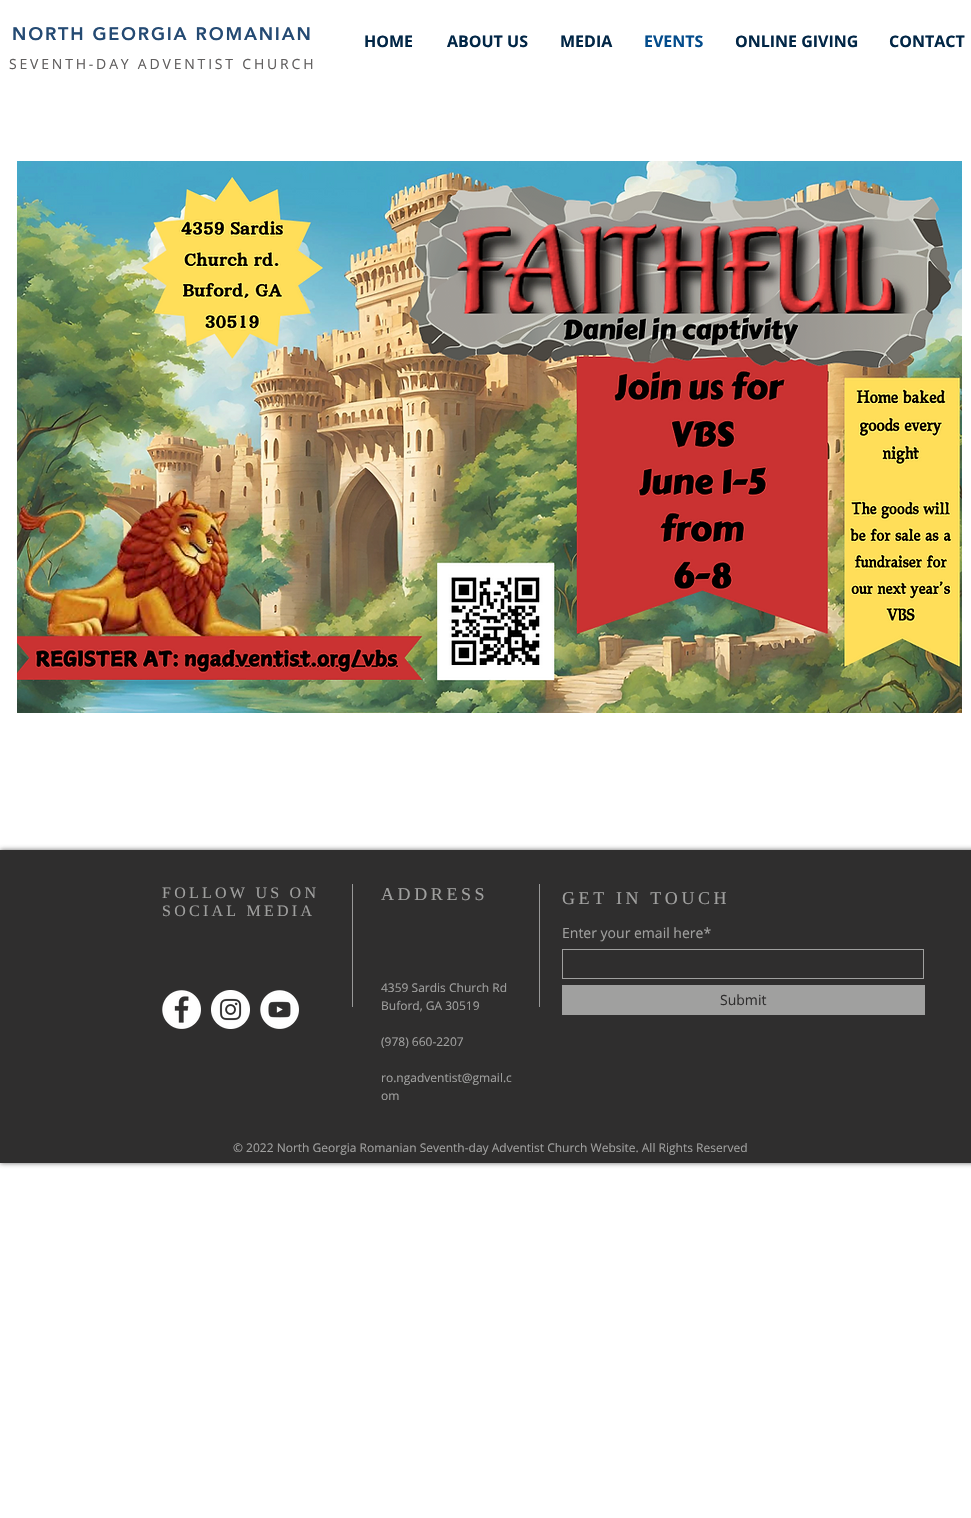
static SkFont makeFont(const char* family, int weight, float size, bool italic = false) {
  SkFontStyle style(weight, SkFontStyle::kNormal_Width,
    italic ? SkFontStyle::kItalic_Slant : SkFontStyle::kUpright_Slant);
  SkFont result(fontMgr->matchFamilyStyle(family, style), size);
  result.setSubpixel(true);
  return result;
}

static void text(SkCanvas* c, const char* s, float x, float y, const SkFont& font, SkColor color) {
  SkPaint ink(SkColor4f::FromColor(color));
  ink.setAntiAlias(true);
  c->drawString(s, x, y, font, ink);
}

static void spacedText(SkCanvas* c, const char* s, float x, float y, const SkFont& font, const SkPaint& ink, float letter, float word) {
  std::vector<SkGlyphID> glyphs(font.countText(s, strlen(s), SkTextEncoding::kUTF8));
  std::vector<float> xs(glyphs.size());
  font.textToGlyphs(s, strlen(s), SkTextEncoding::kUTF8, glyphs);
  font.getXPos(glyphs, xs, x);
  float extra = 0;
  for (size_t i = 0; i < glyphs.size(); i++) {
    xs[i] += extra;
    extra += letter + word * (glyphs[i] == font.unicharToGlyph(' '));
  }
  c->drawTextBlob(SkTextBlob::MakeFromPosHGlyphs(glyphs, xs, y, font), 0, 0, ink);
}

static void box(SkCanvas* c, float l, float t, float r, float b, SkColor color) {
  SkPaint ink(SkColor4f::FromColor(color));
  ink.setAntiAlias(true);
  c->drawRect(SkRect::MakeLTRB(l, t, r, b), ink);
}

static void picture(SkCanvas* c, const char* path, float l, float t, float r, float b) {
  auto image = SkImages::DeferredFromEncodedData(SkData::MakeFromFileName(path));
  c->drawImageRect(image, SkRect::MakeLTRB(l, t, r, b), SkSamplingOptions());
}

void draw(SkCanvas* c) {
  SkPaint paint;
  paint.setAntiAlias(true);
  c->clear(0xffffffff);
  SkFont face1 = makeFont("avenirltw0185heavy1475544", 900, 18);
  paint.setColor(0xff244a73);
  spacedText(c, "NORTH GEORGIA ROMANIAN", 12, 40, face1, paint, 1.8f, 0);
  SkFont face2 = makeFont("Open Sans", 700, 16);
  text(c, "HOME", 364, 47, face2, 0xff012646);
  text(c, "ABOUT US", 447, 47, face2, 0xff012646);
  text(c, "MEDIA", 560, 47, face2, 0xff012646);
  text(c, "EVENTS", 644, 47, face2, 0xff034c8c);
  text(c, "ONLINE GIVING", 735, 47, face2, 0xff012646);
  text(c, "CONTACT", 889, 47, face2, 0xff012646);
  SkFont face3 = makeFont("Open Sans", 400, 14);
  paint.setColor(0xff605e5e);
  spacedText(c, "SEVENTH-DAY ADVENTIST CHURCH", 9, 69, face3, paint, 2.8f, 0);
  picture(c, "img_01.png", 17, 161, 962, 713);
  paint.setColor(0xb82f2e2e);
  paint.setMaskFilter(SkMaskFilter::MakeBlur(kNormal_SkBlurStyle, 2.5f));
  c->drawRect(SkRect::MakeLTRB(0, 850, 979, 1163), paint);
  paint.setMaskFilter(nullptr);
  box(c, 0, 850, 971, 1163, 0xff2f2e2e);
  SkFont face4 = makeFont("Liberation Serif", 400, 16);
  paint.setColor(0xffa0a09f);
  spacedText(c, "FOLLOW US ON", 162, 898, face4, paint, 3.25f, 0);
  spacedText(c, "SOCIAL MEDIA", 162, 916, face4, paint, 3.25f, 0);
  box(c, 352, 884, 353, 1007, 0xff999999);
  SkFont face5 = makeFont("Liberation Serif", 400, 18);
  spacedText(c, "ADDRESS", 381, 900, face5, paint, 3.6f, 0);
  box(c, 539, 884, 540, 1007, 0xff999999);
  spacedText(c, "GET IN TOUCH", 562, 904, face5, paint, 3.6f, 0);
  text(c, "Enter your email here*", 562, 938, face3, 0xffa0a09f);
  paint.setStyle(SkPaint::kStroke_Style);
  paint.setStrokeWidth(1);
  c->drawRect(SkRect::MakeLTRB(562.5f, 949.5f, 923.5f, 978.5f), paint);
  box(c, 562, 985, 925, 1015, 0xffa0a09f);
  text(c, "Submit", 720, 1005, face3, 0xff2f2e2e);
  picture(c, "img_02.png", 162, 990, 201, 1029);
  picture(c, "img_03.png", 211, 990, 250, 1029);
  picture(c, "img_04.png", 260, 990, 299, 1029);
  SkFont face6 = makeFont("Open Sans", 400, 12);
  text(c, "4359 Sardis Church Rd", 381, 992, face6, 0xffa0a09f);
  text(c, "Buford, GA 30519", 381, 1010, face6, 0xffa0a09f);
  text(c, "(978) 660-2207", 381, 1046, face6, 0xffa0a09f);
  text(c, "ro.ngadventist@gmail.c", 381, 1082, face6, 0xffa0a09f);
  text(c, "om", 381, 1100, face6, 0xffa0a09f);
  text(c, "© 2022 North Georgia Romanian Seventh-day Adventist Church Website. All Rights Reserved", 233, 1152, face6, 0xffa0a09f);
}
